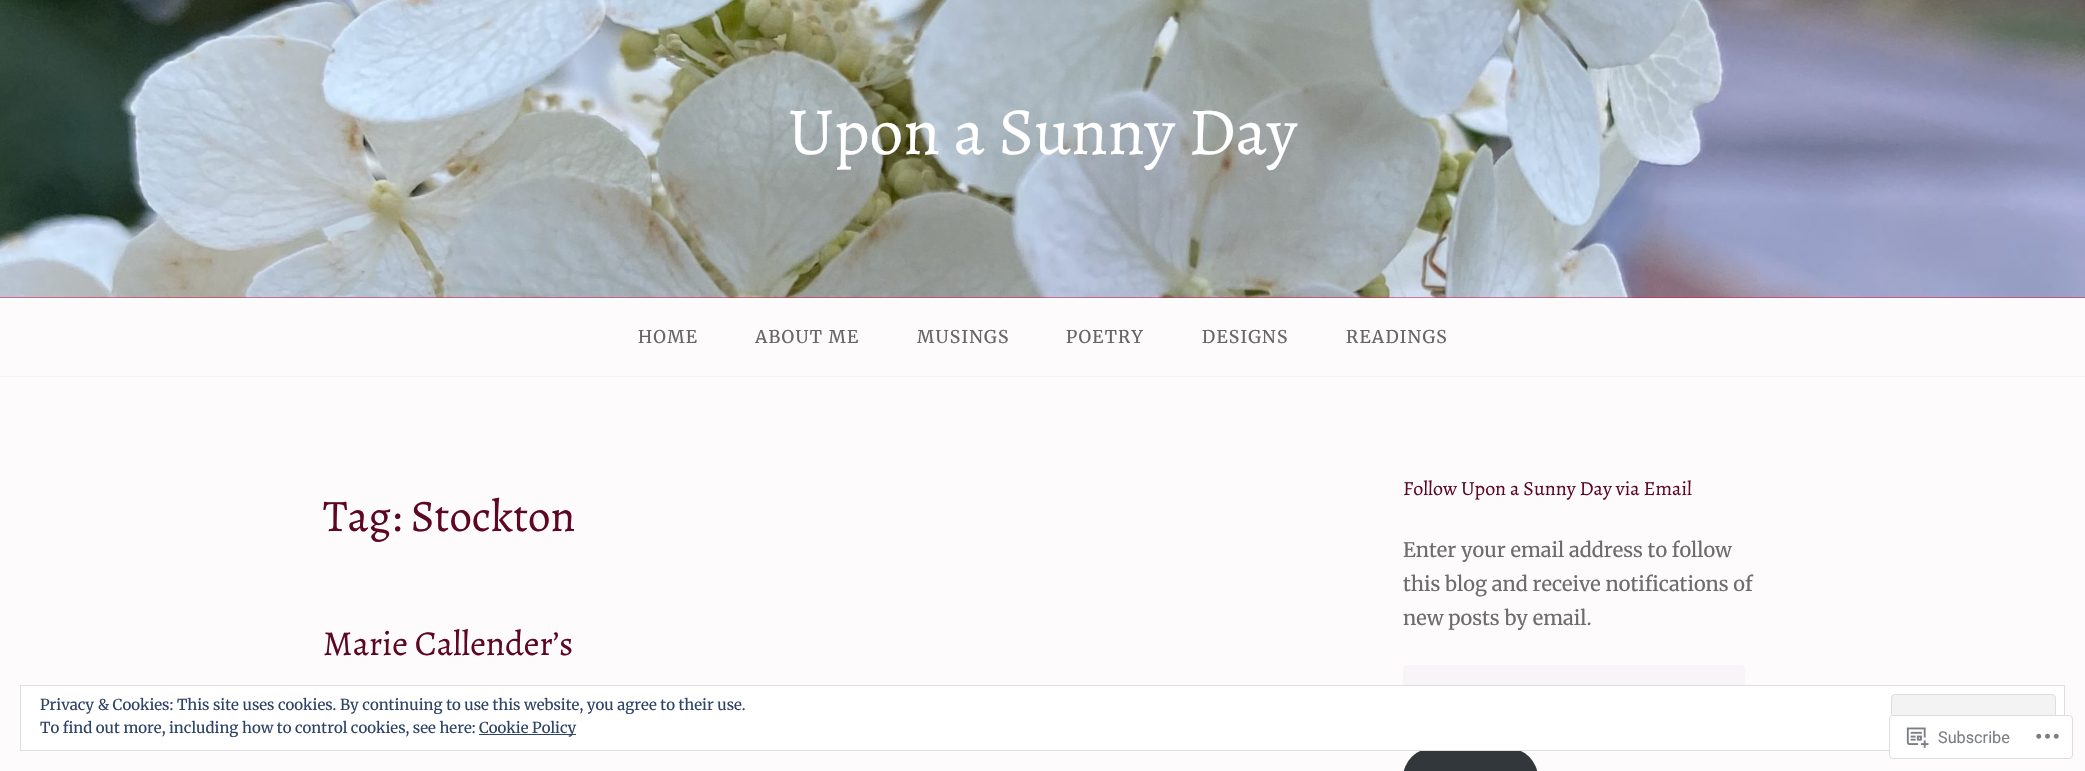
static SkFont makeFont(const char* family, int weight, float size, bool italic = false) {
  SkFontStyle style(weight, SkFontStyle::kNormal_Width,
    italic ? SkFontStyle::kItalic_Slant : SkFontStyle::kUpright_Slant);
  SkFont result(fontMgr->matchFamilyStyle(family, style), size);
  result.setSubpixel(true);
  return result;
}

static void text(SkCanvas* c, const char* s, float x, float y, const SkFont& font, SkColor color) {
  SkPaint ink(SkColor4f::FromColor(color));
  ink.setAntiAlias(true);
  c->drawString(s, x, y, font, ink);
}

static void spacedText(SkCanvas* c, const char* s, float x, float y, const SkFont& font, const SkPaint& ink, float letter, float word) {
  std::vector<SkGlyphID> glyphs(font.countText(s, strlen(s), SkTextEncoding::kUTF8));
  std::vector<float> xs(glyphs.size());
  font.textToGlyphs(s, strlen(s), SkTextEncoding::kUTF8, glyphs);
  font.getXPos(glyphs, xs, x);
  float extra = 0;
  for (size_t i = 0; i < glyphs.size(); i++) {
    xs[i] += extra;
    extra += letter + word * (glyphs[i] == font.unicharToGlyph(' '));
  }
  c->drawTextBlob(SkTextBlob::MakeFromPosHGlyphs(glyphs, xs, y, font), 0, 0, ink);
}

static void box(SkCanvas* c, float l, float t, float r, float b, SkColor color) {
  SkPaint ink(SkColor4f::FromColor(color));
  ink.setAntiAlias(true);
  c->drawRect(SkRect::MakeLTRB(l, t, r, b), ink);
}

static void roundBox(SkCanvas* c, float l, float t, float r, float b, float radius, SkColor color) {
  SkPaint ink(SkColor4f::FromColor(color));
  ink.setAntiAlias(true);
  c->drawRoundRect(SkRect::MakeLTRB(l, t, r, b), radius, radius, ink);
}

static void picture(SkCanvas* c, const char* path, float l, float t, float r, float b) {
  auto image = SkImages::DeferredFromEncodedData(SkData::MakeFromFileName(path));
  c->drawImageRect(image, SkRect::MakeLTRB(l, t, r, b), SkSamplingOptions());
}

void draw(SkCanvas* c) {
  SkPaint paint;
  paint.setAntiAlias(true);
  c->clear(0xfffdfbfc);
  box(c, 0, 297, 2085, 298, 0xffda1050);
  picture(c, "img_01.png", 0, 0, 2085, 298);
  SkFont face1 = makeFont("Alegreya", 400, 67.5f);
  text(c, "Upon a Sunny Day", 788, 154, face1, 0xffffffff);
  box(c, 0, 376, 2085, 377, 0xfff3f2f3);
  SkFont face2 = makeFont("Merriweather", 400, 17.5f);
  paint.setColor(0xff666666);
  spacedText(c, "HOME", 638, 343, face2, paint, 1.25f, 0);
  spacedText(c, "ABOUT ME", 755, 343, face2, paint, 1.25f, 0);
  spacedText(c, "MUSINGS", 917, 343, face2, paint, 1.25f, 0);
  spacedText(c, "POETRY", 1066, 343, face2, paint, 1.25f, 0);
  spacedText(c, "DESIGNS", 1202, 343, face2, paint, 1.25f, 0);
  spacedText(c, "READINGS", 1346, 343, face2, paint, 1.25f, 0);
  SkFont face3 = makeFont("Alegreya", 400, 45);
  text(c, "Tag: Stockton", 323, 531, face3, 0xff5e0722);
  SkFont face4 = makeFont("Alegreya", 400, 35);
  text(c, "Marie Callender’s", 323, 655, face4, 0xff5e0722);
  SkFont face5 = makeFont("Alegreya", 400, 20);
  text(c, "Follow Upon a Sunny Day via Email", 1403, 495, face5, 0xff5e0722);
  SkFont face6 = makeFont("Merriweather", 400, 20);
  text(c, "Enter your email address to follow", 1403, 557, face6, 0xff6d6d6d);
  text(c, "this blog and receive notifications of", 1403, 591, face6, 0xff6d6d6d);
  text(c, "new posts by email.", 1403, 625, face6, 0xff6d6d6d);
  roundBox(c, 1403, 665, 1745, 718, 4, 0xfff9f4f7);
  roundBox(c, 1403, 748, 1538, 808, 36.5f, 0xff32373c);
  paint.setColor(0xffffffff);
  c->drawRect(SkRect::MakeLTRB(20.5f, 685.5f, 2064.5f, 750.5f), paint);
  paint.setStyle(SkPaint::kStroke_Style);
  paint.setStrokeWidth(1);
  paint.setColor(0xffdedede);
  c->drawRect(SkRect::MakeLTRB(20.5f, 685.5f, 2064.5f, 750.5f), paint);
  SkFont face7 = makeFont("Merriweather", 400, 15);
  text(c, "Privacy & Cookies: This site uses cookies. By continuing to use this website, you agree to their use.", 40, 710, face7, 0xff2e4467);
  paint.setStyle(SkPaint::kFill_Style);
  paint.setColor(0xfff3f3f3);
  c->drawRoundRect(SkRect::MakeLTRB(1891.5f, 694.5f, 2055.5f, 742.5f), 3.5f, 3.5f, paint);
  paint.setStyle(SkPaint::kStroke_Style);
  paint.setColor(0xffdedede);
  c->drawRoundRect(SkRect::MakeLTRB(1891.5f, 694.5f, 2055.5f, 742.5f), 3.5f, 3.5f, paint);
  text(c, "To find out more, including how to control cookies, see here:", 40, 733, face7, 0xff2e4467);
  box(c, 479, 734, 576, 735, 0xff2e4467);
  text(c, "Cookie Policy", 479, 733, face7, 0xff2e4467);
  roundBox(c, 1889, 715, 2073, 759, 4, 0xfaffffff);
  paint.setColor(0xfadcdcde);
  c->drawRoundRect(SkRect::MakeLTRB(1889.5f, 715.5f, 2072.5f, 758.5f), 3.5f, 3.5f, paint);
  picture(c, "img_02.png", 1906, 727, 1929, 748);
  SkFont face8 = makeFont("Roboto", 400, 16.25f);
  text(c, "Subscribe", 1938, 743, face8, 0xff7b7f84);
  picture(c, "img_03.png", 2036, 733, 2059, 739);
}
